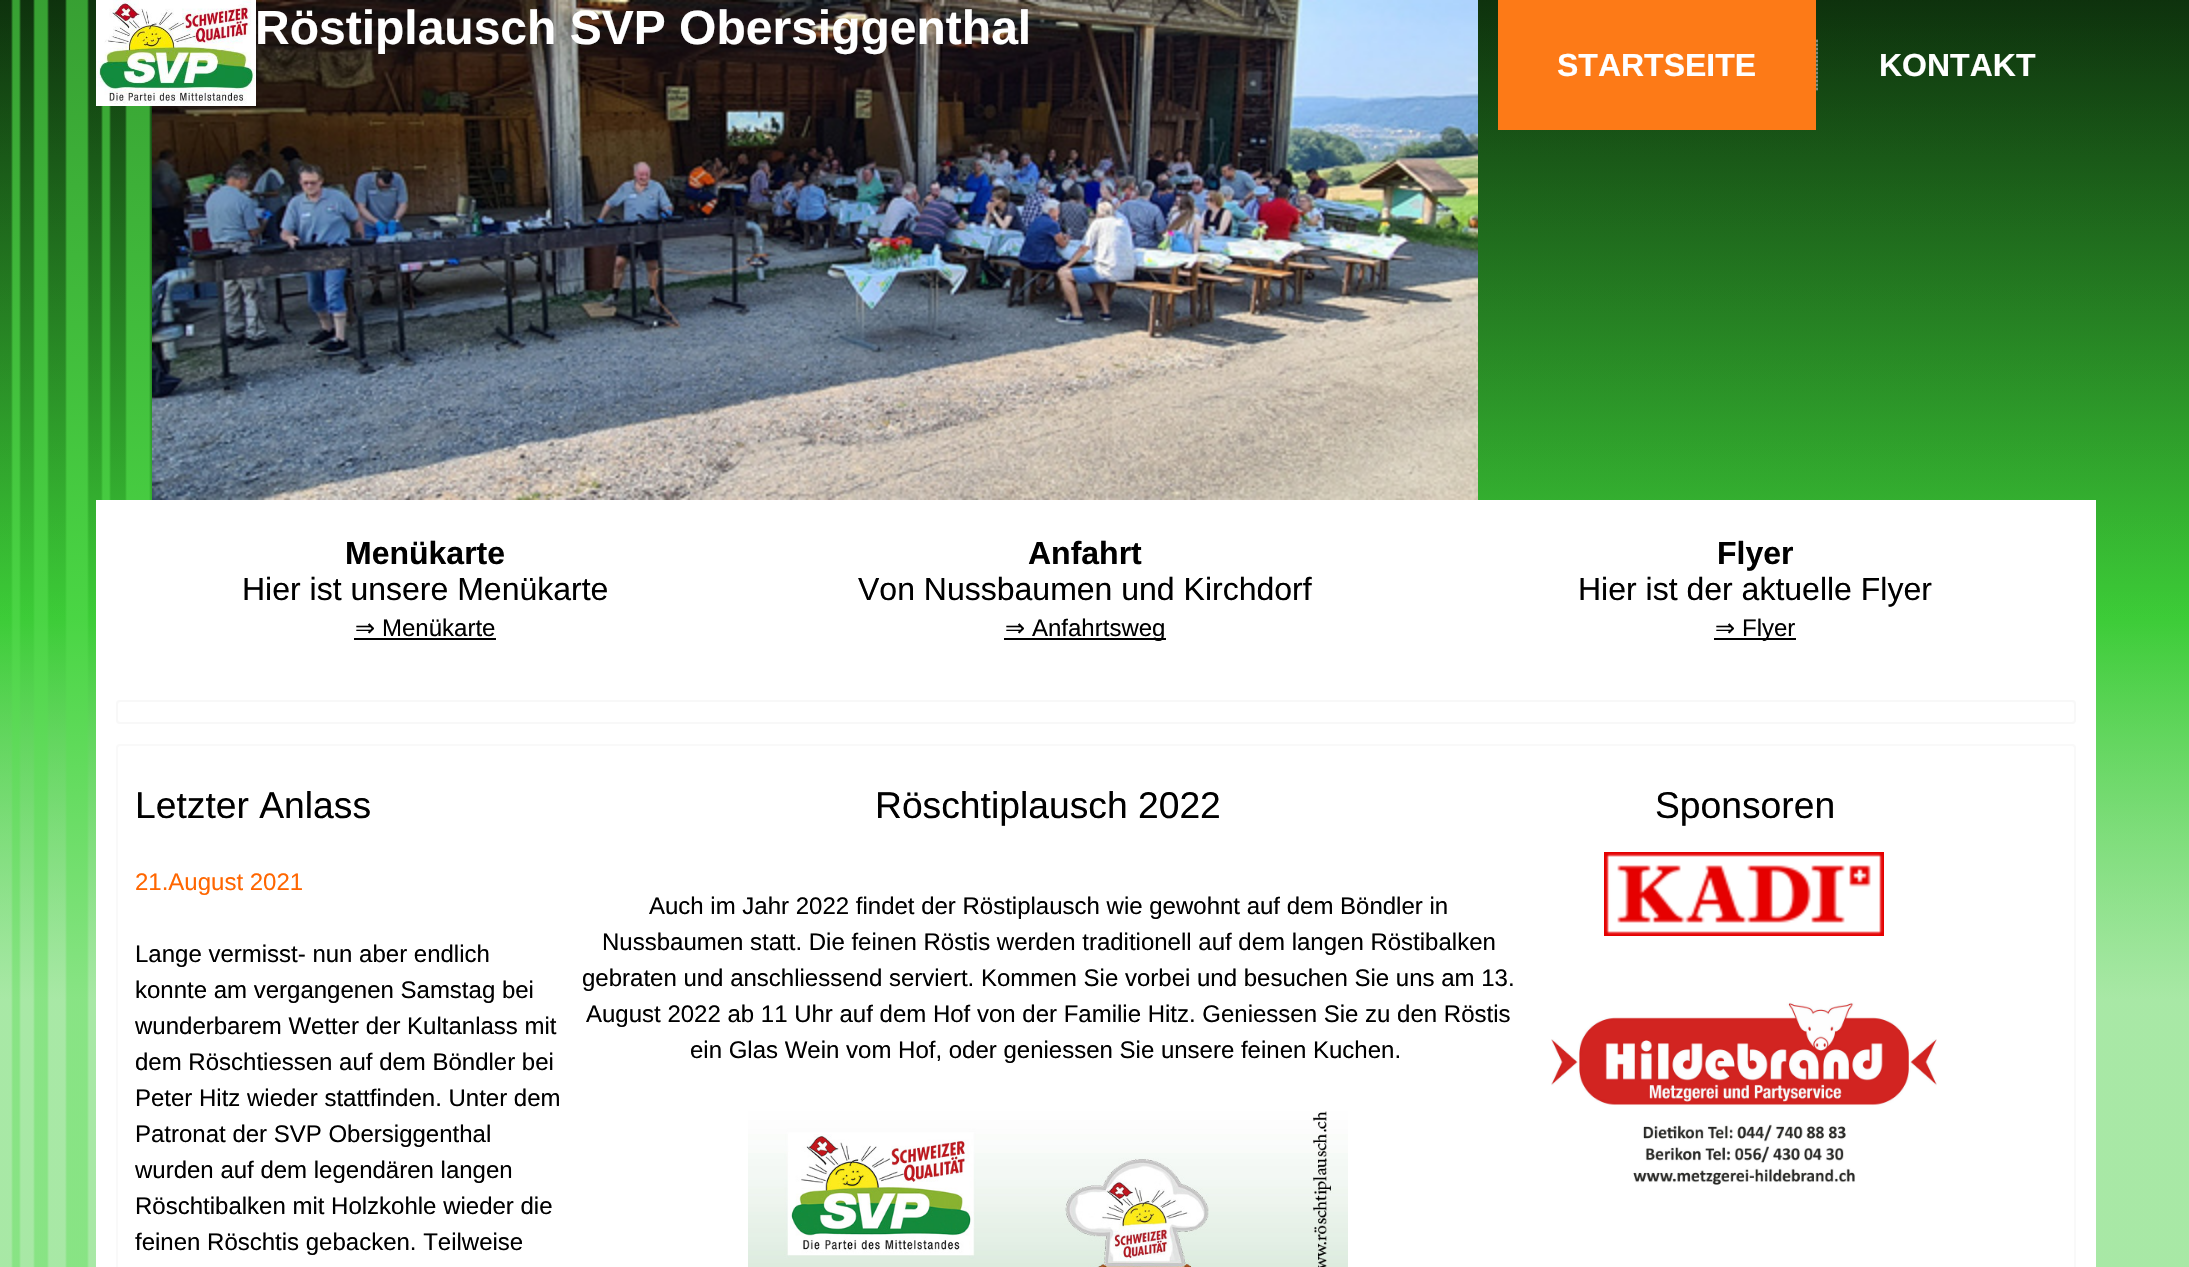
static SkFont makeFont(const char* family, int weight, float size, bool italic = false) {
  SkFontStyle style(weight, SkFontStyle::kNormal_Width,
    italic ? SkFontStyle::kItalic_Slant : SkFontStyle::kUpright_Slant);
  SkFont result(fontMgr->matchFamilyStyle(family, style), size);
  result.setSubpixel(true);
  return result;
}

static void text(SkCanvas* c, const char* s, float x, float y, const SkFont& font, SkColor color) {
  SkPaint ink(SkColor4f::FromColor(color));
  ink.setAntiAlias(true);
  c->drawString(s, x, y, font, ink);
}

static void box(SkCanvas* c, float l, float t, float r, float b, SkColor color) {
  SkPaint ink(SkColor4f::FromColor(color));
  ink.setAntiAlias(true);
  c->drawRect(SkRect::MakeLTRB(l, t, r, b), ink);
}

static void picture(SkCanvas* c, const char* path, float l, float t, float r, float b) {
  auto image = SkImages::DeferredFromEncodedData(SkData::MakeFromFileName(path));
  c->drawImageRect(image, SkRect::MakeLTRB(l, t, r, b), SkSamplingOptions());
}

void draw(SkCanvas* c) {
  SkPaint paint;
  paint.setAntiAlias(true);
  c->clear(0xffffffff);
  picture(c, "img_01.png", 0, 0, 2189, 1267);
  picture(c, "img_02.png", 152, 0, 1478, 500);
  picture(c, "img_03.png", 96, 0, 256, 106);
  SkFont face1 = makeFont("Liberation Sans", 700, 48);
  text(c, "Röstiplausch SVP Obersiggenthal", 255, 44, face1, 0xffffffff);
  box(c, 1498, 0, 1816, 130, 0xfffd7a17);
  SkFont face2 = makeFont("Liberation Sans", 700, 32);
  text(c, "STARTSEITE", 1557, 76, face2, 0xffffffff);
  picture(c, "img_04.png", 1816, 39, 1818, 91);
  text(c, "KONTAKT", 1879, 76, face2, 0xffffffff);
  box(c, 96, 500, 2096, 1267, 0xffffffff);
  text(c, "Menükarte", 345, 564, face2, 0xff000000);
  SkFont face3 = makeFont("Liberation Sans", 400, 32);
  text(c, "Hier ist unsere Menükarte", 242, 600, face3, 0xff000000);
  SkFont face4 = makeFont("DejaVu Sans", 400, 24);
  text(c, "⇒", 355, 636, face4, 0xff000000);
  box(c, 354, 638, 496, 640, 0xff000000);
  SkFont face5 = makeFont("Liberation Sans", 400, 24);
  text(c, "Menükarte", 382, 636, face5, 0xff000000);
  text(c, "Anfahrt", 1028, 564, face2, 0xff000000);
  text(c, "Von Nussbaumen und Kirchdorf", 858, 600, face3, 0xff000000);
  text(c, "⇒", 1005, 636, face4, 0xff000000);
  box(c, 1004, 638, 1166, 640, 0xff000000);
  text(c, "Anfahrtsweg", 1032, 636, face5, 0xff000000);
  text(c, "Flyer", 1717, 564, face2, 0xff000000);
  text(c, "Hier ist der aktuelle Flyer", 1578, 600, face3, 0xff000000);
  text(c, "⇒", 1715, 636, face4, 0xff000000);
  box(c, 1714, 638, 1796, 640, 0xff000000);
  text(c, "Flyer", 1742, 636, face5, 0xff000000);
  paint.setStyle(SkPaint::kStroke_Style);
  paint.setStrokeWidth(2);
  paint.setColor(0xfff8f8f8);
  c->drawRoundRect(SkRect::MakeLTRB(117, 701, 2075, 723), 3, 3, paint);
  paint.setColor(0xfff9f9f9);
  c->drawRoundRect(SkRect::MakeLTRB(117, 745, 2075, 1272), 3, 3, paint);
  SkFont face6 = makeFont("Liberation Sans", 400, 37.25f);
  text(c, "Letzter Anlass", 135, 818, face6, 0xff000000);
  text(c, "21.August 2021", 135, 890, face5, 0xffff6600);
  text(c, "Lange vermisst- nun aber endlich", 135, 962, face5, 0xff000000);
  text(c, "konnte am vergangenen Samstag bei", 135, 998, face5, 0xff000000);
  text(c, "wunderbarem Wetter der Kultanlass mit", 135, 1034, face5, 0xff000000);
  text(c, "dem Röschtiessen auf dem Böndler bei", 135, 1070, face5, 0xff000000);
  text(c, "Peter Hitz wieder stattfinden. Unter dem", 135, 1106, face5, 0xff000000);
  text(c, "Patronat der SVP Obersiggenthal", 135, 1142, face5, 0xff000000);
  text(c, "wurden auf dem legendären langen", 135, 1178, face5, 0xff000000);
  text(c, "Röschtibalken mit Holzkohle wieder die", 135, 1214, face5, 0xff000000);
  text(c, "feinen Röschtis gebacken. Teilweise", 135, 1250, face5, 0xff000000);
  text(c, "Röschtiplausch 2022", 875, 818, face6, 0xff000000);
  text(c, "Auch im Jahr 2022 findet der Röstiplausch wie gewohnt auf dem Böndler in", 649, 914, face5, 0xff000000);
  text(c, "Nussbaumen statt. Die feinen Röstis werden traditionell auf dem langen Röstibalken", 602, 950, face5, 0xff000000);
  text(c, "gebraten und anschliessend serviert. Kommen Sie vorbei und besuchen Sie uns am 13.", 582, 986, face5, 0xff000000);
  text(c, "August 2022 ab 11 Uhr auf dem Hof von der Familie Hitz. Geniessen Sie zu den Röstis", 586, 1022, face5, 0xff000000);
  text(c, "ein Glas Wein vom Hof, oder geniessen Sie unsere feinen Kuchen.", 690, 1058, face5, 0xff000000);
  picture(c, "img_05.png", 748, 1111, 1348, 1267);
  text(c, "Sponsoren", 1655, 818, face6, 0xff000000);
  picture(c, "img_06.png", 1604, 852, 1884, 936);
  picture(c, "img_07.png", 1551, 1002, 1937, 1185);
}
